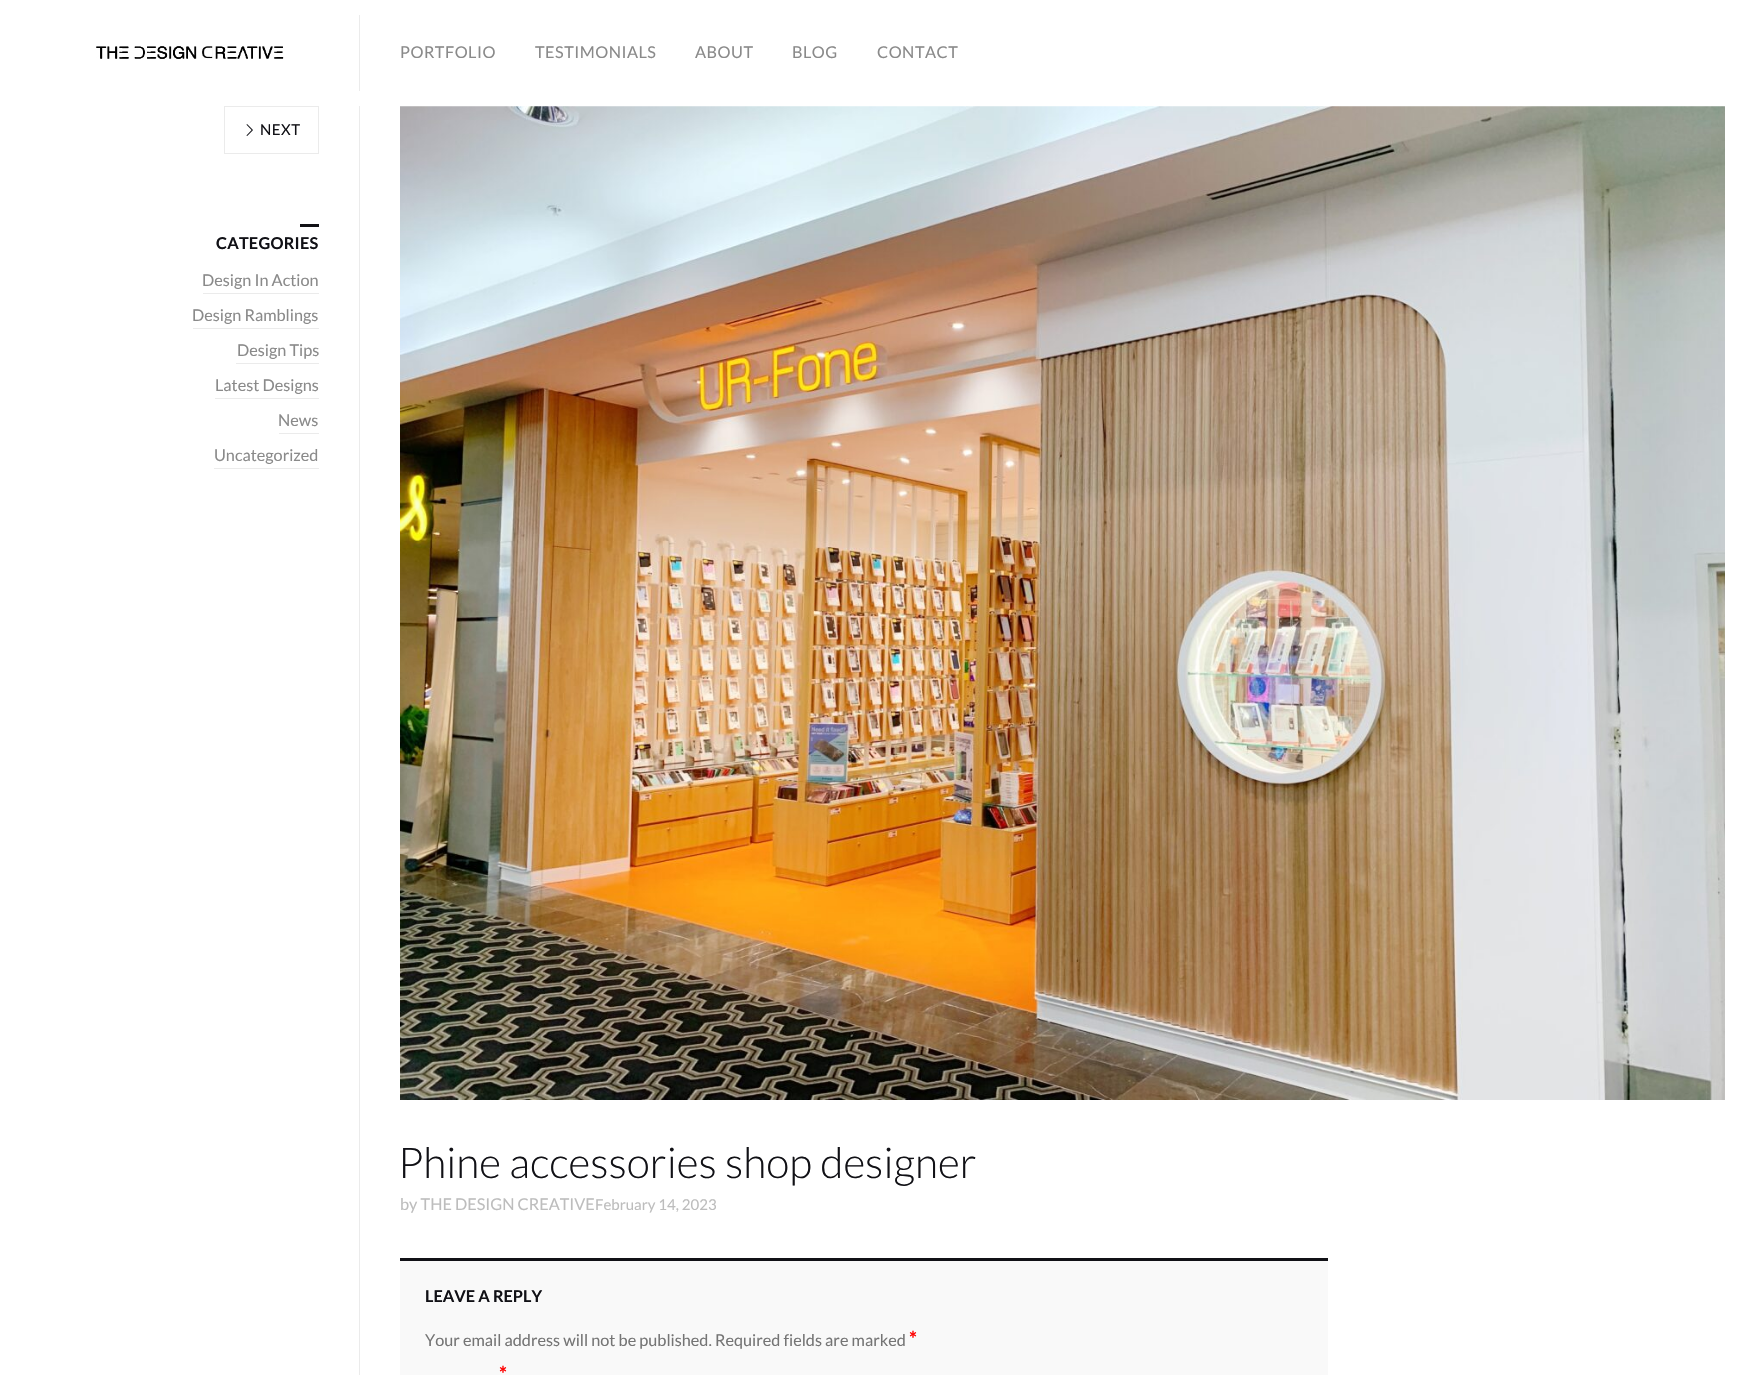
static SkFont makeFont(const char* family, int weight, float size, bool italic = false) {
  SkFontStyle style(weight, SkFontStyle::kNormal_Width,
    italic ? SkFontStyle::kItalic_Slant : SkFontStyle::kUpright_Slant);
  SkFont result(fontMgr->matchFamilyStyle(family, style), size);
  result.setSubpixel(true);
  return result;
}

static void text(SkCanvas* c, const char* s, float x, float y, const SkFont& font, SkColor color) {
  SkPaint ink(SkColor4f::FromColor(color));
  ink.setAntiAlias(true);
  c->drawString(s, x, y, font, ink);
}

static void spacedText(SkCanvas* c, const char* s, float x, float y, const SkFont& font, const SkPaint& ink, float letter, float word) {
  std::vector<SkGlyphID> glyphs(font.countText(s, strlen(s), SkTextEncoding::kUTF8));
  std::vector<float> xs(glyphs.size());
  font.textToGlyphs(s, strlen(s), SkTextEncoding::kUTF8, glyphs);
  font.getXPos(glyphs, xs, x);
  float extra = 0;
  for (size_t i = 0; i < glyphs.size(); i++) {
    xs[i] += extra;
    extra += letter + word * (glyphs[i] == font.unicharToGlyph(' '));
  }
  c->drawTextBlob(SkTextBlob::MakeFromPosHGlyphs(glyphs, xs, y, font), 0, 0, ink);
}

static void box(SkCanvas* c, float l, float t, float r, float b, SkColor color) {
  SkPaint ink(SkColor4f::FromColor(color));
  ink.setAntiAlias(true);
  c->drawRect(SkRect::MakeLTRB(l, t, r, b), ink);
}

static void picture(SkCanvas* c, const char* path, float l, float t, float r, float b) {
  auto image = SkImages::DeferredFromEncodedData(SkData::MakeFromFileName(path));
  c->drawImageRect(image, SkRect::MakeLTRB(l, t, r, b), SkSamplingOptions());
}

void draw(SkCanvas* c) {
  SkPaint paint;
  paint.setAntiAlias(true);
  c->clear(0xffffffff);
  box(c, 359, 15, 360, 91, 0xffebebeb);
  picture(c, "img_01.png", 96, 46, 284, 59);
  SkFont face1 = makeFont("Lato", 400, 16.25f);
  paint.setColor(0xff8a8a8a);
  spacedText(c, "PORTFOLIO", 400, 58, face1, paint, 0.5f, 0);
  spacedText(c, "TESTIMONIALS", 535, 58, face1, paint, 0.5f, 0);
  spacedText(c, "ABOUT", 695, 58, face1, paint, 0.5f, 0);
  spacedText(c, "BLOG", 792, 58, face1, paint, 0.5f, 0);
  spacedText(c, "CONTACT", 877, 58, face1, paint, 0.5f, 0);
  box(c, 359, 106, 360, 1375, 0xffebebeb);
  paint.setStyle(SkPaint::kStroke_Style);
  paint.setStrokeWidth(1);
  paint.setColor(0xffebebeb);
  c->drawRect(SkRect::MakeLTRB(224.5f, 106.5f, 318.5f, 153.5f), paint);
  picture(c, "img_02.png", 246, 124, 253, 136);
  SkFont face2 = makeFont("Lato", 400, 15);
  paint.setStyle(SkPaint::kFill_Style);
  paint.setColor(0xff111116);
  spacedText(c, "NEXT", 260, 135, face2, paint, 0.5f, 0);
  box(c, 300, 224, 319, 227, 0xff111116);
  SkFont face3 = makeFont("Lato", 700, 16.25f);
  spacedText(c, "CATEGORIES", 216, 249, face3, paint, 0.25f, 0);
  text(c, "Design In Action", 202, 286, face1, 0xff8a8a8a);
  box(c, 203, 293, 319, 294, 0xffebebeb);
  text(c, "Design Ramblings", 192, 321, face1, 0xff8a8a8a);
  box(c, 193, 328, 319, 329, 0xffebebeb);
  text(c, "Design Tips", 237, 356, face1, 0xff8a8a8a);
  box(c, 236, 363, 319, 364, 0xffebebeb);
  text(c, "Latest Designs", 215, 391, face1, 0xff8a8a8a);
  box(c, 215, 398, 319, 399, 0xffebebeb);
  text(c, "News", 278, 426, face1, 0xff8a8a8a);
  box(c, 279, 433, 319, 434, 0xffebebeb);
  text(c, "Uncategorized", 214, 461, face1, 0xff8a8a8a);
  box(c, 214, 468, 319, 469, 0xffebebeb);
  picture(c, "img_03.png", 400, 106, 1725, 1100);
  SkFont face4 = makeFont("Lato", 300, 42.5f);
  text(c, "Phine accessories shop designer", 398, 1178, face4, 0xff111116);
  text(c, "by THE DESIGN CREATIVE", 400, 1210, face1, 0xffbdbdbd);
  text(c, "February 14, 2023", 595, 1210, face2, 0xffbdbdbd);
  box(c, 400, 1261, 1328, 1375, 0xfff9f9f9);
  box(c, 400, 1258, 1328, 1261, 0xff111116);
  text(c, "LEAVE A REPLY", 425, 1302, face3, 0xff111116);
  text(c, "Your email address will not be published. Required fields are marked", 425, 1346, face1, 0xff757575);
  SkFont face5 = makeFont("Lato", 700, 20);
  text(c, "*", 909, 1346, face5, 0xffff0000);
  text(c, "*", 499, 1381, face5, 0xffff0000);
}
